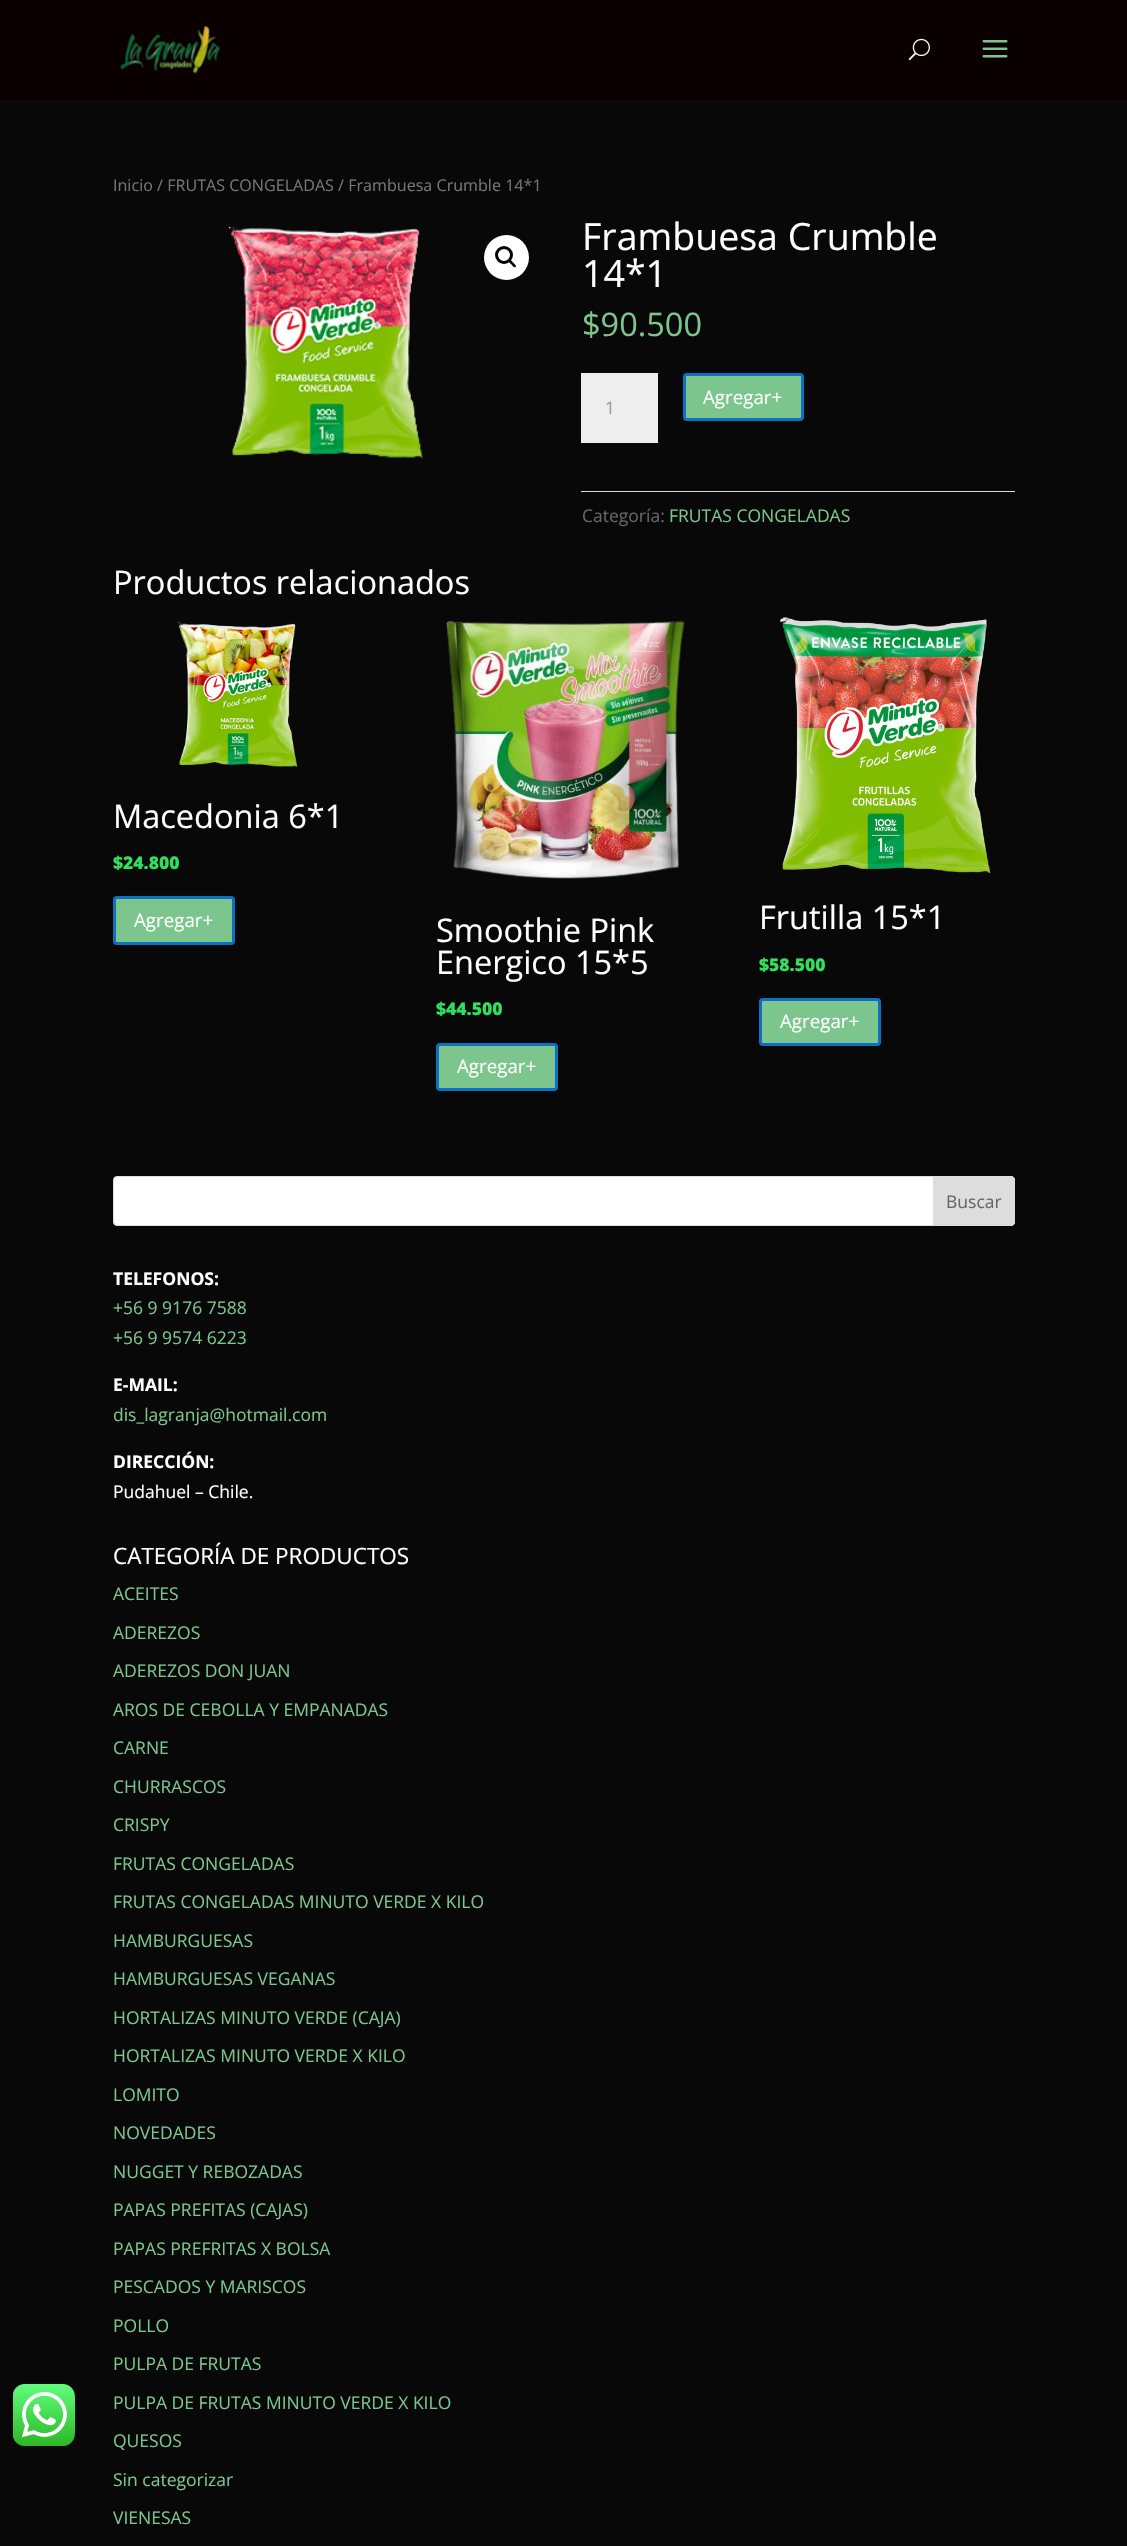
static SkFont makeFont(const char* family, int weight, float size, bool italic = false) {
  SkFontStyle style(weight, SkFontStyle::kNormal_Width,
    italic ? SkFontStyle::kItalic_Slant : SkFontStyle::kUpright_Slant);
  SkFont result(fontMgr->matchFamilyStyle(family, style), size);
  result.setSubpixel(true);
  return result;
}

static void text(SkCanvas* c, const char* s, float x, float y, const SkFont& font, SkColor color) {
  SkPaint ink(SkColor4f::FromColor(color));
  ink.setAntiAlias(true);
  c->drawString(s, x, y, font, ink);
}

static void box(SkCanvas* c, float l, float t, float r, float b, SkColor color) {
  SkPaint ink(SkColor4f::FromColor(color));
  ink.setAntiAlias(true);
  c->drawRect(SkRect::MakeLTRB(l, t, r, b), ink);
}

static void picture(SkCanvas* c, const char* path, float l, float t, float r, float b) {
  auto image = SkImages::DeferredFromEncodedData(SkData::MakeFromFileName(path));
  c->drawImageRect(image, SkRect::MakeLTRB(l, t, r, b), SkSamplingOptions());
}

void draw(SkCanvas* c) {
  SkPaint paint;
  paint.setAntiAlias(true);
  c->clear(0xff080808);
  picture(c, "img_01.png", 13, 2384, 75, 2446);
  box(c, 0, 0, 1127, 100, 0xff0a0000);
  picture(c, "img_02.png", 120, 25, 221, 74);
  picture(c, "img_03.png", 908, 38, 930, 61);
  picture(c, "img_04.png", 982, 40, 1008, 58);
  SkFont face1 = makeFont("Open Sans", 400, 16.1f);
  text(c, "Inicio / FRUTAS CONGELADAS / Frambuesa Crumble 14*1", 113, 191, face1, 0xff767676);
  picture(c, "img_05.png", 228, 226, 423, 459);
  paint.setColor(0xffffffff);
  c->drawCircle(506.5f, 257.5f, 22.5f, paint);
  paint.setStyle(SkPaint::kStroke_Style);
  paint.setStrokeWidth(3);
  paint.setColor(0xff000000);
  c->drawCircle(504, 255, 7.5f, paint);
  paint.setStyle(SkPaint::kFill_Style);
  c->drawPath(SkPathBuilder().moveTo(508.5f, 260).cubicTo(510, 258.5f, 512, 261.5f, 513, 262.5f).cubicTo(513.5f, 263, 517, 265.5f, 515.5f, 267).cubicTo(514, 268.5f, 512, 265, 511, 264).cubicTo(510.5f, 263.5f, 507, 261, 508.5f, 260).close().detach(), paint);
  SkFont face2 = makeFont("Open Sans", 400, 37.5f);
  text(c, "Frambuesa Crumble", 582, 250, face2, 0xffffffff);
  text(c, "14*1", 582, 287, face2, 0xffffffff);
  SkFont face3 = makeFont("Open Sans", 400, 32.5f);
  text(c, "$90.500", 582, 336, face3, 0xff7cc68d);
  box(c, 581, 373, 658, 443, 0xffeeeeee);
  SkFont face4 = makeFont("Open Sans", 400, 17.5f);
  text(c, "1", 605, 414, face4, 0xff999999);
  paint.setColor(0xff7cc68d);
  c->drawRoundRect(SkRect::MakeLTRB(684.5f, 374.5f, 802.5f, 419.5f), 2.5f, 2.5f, paint);
  paint.setStyle(SkPaint::kStroke_Style);
  paint.setColor(0xff0c71c3);
  c->drawRoundRect(SkRect::MakeLTRB(684.5f, 374.5f, 802.5f, 419.5f), 2.5f, 2.5f, paint);
  SkFont face5 = makeFont("Open Sans", 400, 18.75f);
  text(c, "Agregar+", 703, 404, face5, 0xffffffff);
  box(c, 581, 491, 1015, 492, 0xffdadada);
  text(c, "Categoría:", 582, 522, face4, 0xff666666);
  text(c, "FRUTAS CONGELADAS", 669, 522, face4, 0xff7cc68d);
  text(c, "Productos relacionados", 113, 594, face3, 0xffffffff);
  picture(c, "img_06.png", 177, 621, 297, 767);
  text(c, "Macedonia 6*1", 113, 828, face3, 0xffffffff);
  SkFont face6 = makeFont("Open Sans", 800, 17.5f);
  text(c, "$24.800", 113, 869, face6, 0xff31df5e);
  paint.setStyle(SkPaint::kFill_Style);
  paint.setColor(0xff7cc68d);
  c->drawRoundRect(SkRect::MakeLTRB(114.5f, 897.5f, 233.5f, 943.5f), 2.5f, 2.5f, paint);
  paint.setStyle(SkPaint::kStroke_Style);
  paint.setColor(0xff0c71c3);
  c->drawRoundRect(SkRect::MakeLTRB(114.5f, 897.5f, 233.5f, 943.5f), 2.5f, 2.5f, paint);
  text(c, "Agregar+", 134, 927, face5, 0xffffffff);
  picture(c, "img_07.png", 446, 620, 685, 879);
  text(c, "Smoothie Pink", 436, 942, face3, 0xffffffff);
  text(c, "Energico 15*5", 436, 974, face3, 0xffffffff);
  text(c, "$44.500", 436, 1015, face6, 0xff31df5e);
  paint.setStyle(SkPaint::kFill_Style);
  paint.setColor(0xff7cc68d);
  c->drawRoundRect(SkRect::MakeLTRB(437.5f, 1044.5f, 556.5f, 1089.5f), 2.5f, 2.5f, paint);
  paint.setStyle(SkPaint::kStroke_Style);
  paint.setColor(0xff0c71c3);
  c->drawRoundRect(SkRect::MakeLTRB(437.5f, 1044.5f, 556.5f, 1089.5f), 2.5f, 2.5f, paint);
  text(c, "Agregar+", 457, 1073, face5, 0xffffffff);
  picture(c, "img_08.png", 780, 617, 991, 874);
  text(c, "Frutilla 15*1", 759, 929, face3, 0xffffffff);
  text(c, "$58.500", 759, 971, face6, 0xff31df5e);
  paint.setStyle(SkPaint::kFill_Style);
  paint.setColor(0xff7cc68d);
  c->drawRoundRect(SkRect::MakeLTRB(760.5f, 999.5f, 879.5f, 1044.5f), 2.5f, 2.5f, paint);
  paint.setStyle(SkPaint::kStroke_Style);
  paint.setColor(0xff0c71c3);
  c->drawRoundRect(SkRect::MakeLTRB(760.5f, 999.5f, 879.5f, 1044.5f), 2.5f, 2.5f, paint);
  text(c, "Agregar+", 780, 1028, face5, 0xffffffff);
  paint.setStyle(SkPaint::kFill_Style);
  paint.setColor(0xffffffff);
  c->drawRoundRect(SkRect::MakeLTRB(113.5f, 1176.5f, 1014.5f, 1225.5f), 3.5f, 3.5f, paint);
  paint.setStyle(SkPaint::kStroke_Style);
  paint.setStrokeWidth(1);
  paint.setColor(0xffdddddd);
  c->drawRoundRect(SkRect::MakeLTRB(113.5f, 1176.5f, 1014.5f, 1225.5f), 3.5f, 3.5f, paint);
  paint.setStyle(SkPaint::kFill_Style);
  c->drawPath(SkPathBuilder().moveTo(933.5f, 1176.5f).lineTo(1011, 1176.5f).cubicTo(1013, 1176.5f, 1014.5f, 1178, 1014.5f, 1180).lineTo(1014.5f, 1222).cubicTo(1014.5f, 1224, 1013, 1225.5f, 1011, 1225.5f).lineTo(933.5f, 1225.5f).close().detach(), paint);
  paint.setStyle(SkPaint::kStroke_Style);
  c->drawPath(SkPathBuilder().moveTo(933.5f, 1176.5f).lineTo(1011, 1176.5f).cubicTo(1013, 1176.5f, 1014.5f, 1178, 1014.5f, 1180).lineTo(1014.5f, 1222).cubicTo(1014.5f, 1224, 1013, 1225.5f, 1011, 1225.5f).lineTo(933.5f, 1225.5f).close().detach(), paint);
  text(c, "Buscar", 946, 1208, face4, 0xff666666);
  SkFont face7 = makeFont("Open Sans", 700, 17.5f);
  text(c, "TELEFONOS:", 113, 1285, face7, 0xffffffff);
  text(c, "+56 9 9176 7588", 113, 1314, face4, 0xff7cc68d);
  text(c, "+56 9 9574 6223", 113, 1344, face4, 0xff7cc68d);
  text(c, "E-MAIL:", 113, 1391, face7, 0xffffffff);
  text(c, "dis_lagranja@hotmail.com", 113, 1421, face4, 0xff7cc68d);
  text(c, "DIRECCIÓN:", 113, 1468, face7, 0xffffffff);
  text(c, "Pudahuel – Chile.", 113, 1498, face4, 0xffffffff);
  SkFont face8 = makeFont("Open Sans", 400, 22.5f);
  text(c, "CATEGORÍA DE PRODUCTOS", 113, 1564, face8, 0xffffffff);
  text(c, "ACEITES", 113, 1600, face4, 0xff7cc68d);
  text(c, "ADEREZOS", 113, 1639, face4, 0xff7cc68d);
  text(c, "ADEREZOS DON JUAN", 113, 1677, face4, 0xff7cc68d);
  text(c, "AROS DE CEBOLLA Y EMPANADAS", 113, 1716, face4, 0xff7cc68d);
  text(c, "CARNE", 113, 1754, face4, 0xff7cc68d);
  text(c, "CHURRASCOS", 113, 1793, face4, 0xff7cc68d);
  text(c, "CRISPY", 113, 1831, face4, 0xff7cc68d);
  text(c, "FRUTAS CONGELADAS", 113, 1870, face4, 0xff7cc68d);
  text(c, "FRUTAS CONGELADAS MINUTO VERDE X KILO", 113, 1908, face4, 0xff7cc68d);
  text(c, "HAMBURGUESAS", 113, 1947, face4, 0xff7cc68d);
  text(c, "HAMBURGUESAS VEGANAS", 113, 1985, face4, 0xff7cc68d);
  text(c, "HORTALIZAS MINUTO VERDE (CAJA)", 113, 2024, face4, 0xff7cc68d);
  text(c, "HORTALIZAS MINUTO VERDE X KILO", 113, 2062, face4, 0xff7cc68d);
  text(c, "LOMITO", 113, 2101, face4, 0xff7cc68d);
  text(c, "NOVEDADES", 113, 2139, face4, 0xff7cc68d);
  text(c, "NUGGET Y REBOZADAS", 113, 2178, face4, 0xff7cc68d);
  text(c, "PAPAS PREFITAS (CAJAS)", 113, 2216, face4, 0xff7cc68d);
  text(c, "PAPAS PREFRITAS X BOLSA", 113, 2255, face4, 0xff7cc68d);
  text(c, "PESCADOS Y MARISCOS", 113, 2293, face4, 0xff7cc68d);
  text(c, "POLLO", 113, 2332, face4, 0xff7cc68d);
  text(c, "PULPA DE FRUTAS", 113, 2370, face4, 0xff7cc68d);
  text(c, "PULPA DE FRUTAS MINUTO VERDE X KILO", 113, 2409, face4, 0xff7cc68d);
  text(c, "QUESOS", 113, 2447, face4, 0xff7cc68d);
  text(c, "Sin categorizar", 113, 2486, face4, 0xff7cc68d);
  text(c, "VIENESAS", 113, 2524, face4, 0xff7cc68d);
}
